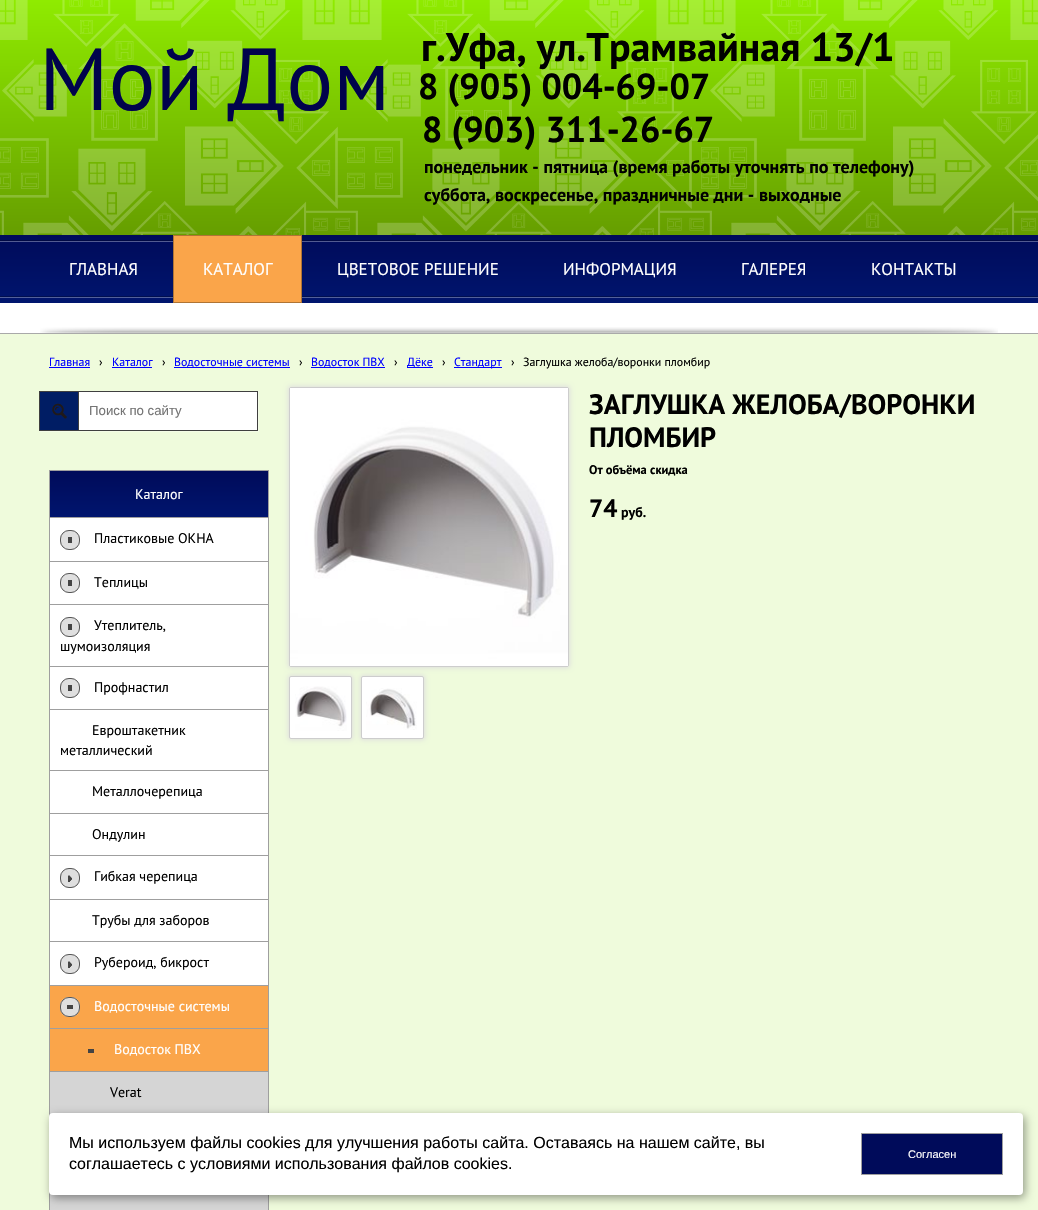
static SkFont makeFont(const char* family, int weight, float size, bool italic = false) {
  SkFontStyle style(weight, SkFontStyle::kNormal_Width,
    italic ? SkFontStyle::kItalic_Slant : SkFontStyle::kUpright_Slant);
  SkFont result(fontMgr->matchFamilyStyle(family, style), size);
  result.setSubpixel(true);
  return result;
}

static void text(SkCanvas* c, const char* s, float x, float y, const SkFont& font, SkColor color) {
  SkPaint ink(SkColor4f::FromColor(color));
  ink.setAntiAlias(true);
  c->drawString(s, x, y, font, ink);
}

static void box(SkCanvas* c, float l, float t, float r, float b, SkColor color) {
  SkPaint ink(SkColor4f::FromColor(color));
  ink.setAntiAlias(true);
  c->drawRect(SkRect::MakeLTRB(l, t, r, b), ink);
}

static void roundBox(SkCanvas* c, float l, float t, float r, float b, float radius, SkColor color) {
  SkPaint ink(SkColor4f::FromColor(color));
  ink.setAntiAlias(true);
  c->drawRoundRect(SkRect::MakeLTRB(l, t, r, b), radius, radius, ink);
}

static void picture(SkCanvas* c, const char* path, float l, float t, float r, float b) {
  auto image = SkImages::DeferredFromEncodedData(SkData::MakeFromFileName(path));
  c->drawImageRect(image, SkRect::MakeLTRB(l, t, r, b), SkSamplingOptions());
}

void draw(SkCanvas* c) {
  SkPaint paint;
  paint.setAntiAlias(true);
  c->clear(0xffffffff);
  {
    const SkColor colors[] = {0xff8feb00, 0xff669e00};
    const float stops[] = {0, 1};
    const SkPoint ends[] = {{519, 0}, {519, 235}};
    paint.setShader(SkGradientShader::MakeLinear(ends, colors, stops, 2, SkTileMode::kClamp));
    paint.setAlpha(255);
  }
  c->drawRect(SkRect::MakeLTRB(0, 0, 1038, 235), paint);
  picture(c, "img_01.png", 0, 0, 1038, 235);
  SkFont face1 = makeFont("PT Sans", 400, 88);
  text(c, "Мой Дом", 39, 110, face1, 0xff00034c);
  SkFont face2 = makeFont("PT Sans", 700, 40);
  text(c, "г.Уфа, ул.Трамвайная 13/1", 421, 61, face2, 0xff000000);
  SkFont face3 = makeFont("PT Sans", 700, 36);
  text(c, "8 (905) 004-69-07", 418, 99, face3, 0xff000000);
  text(c, "8 (903) 311-26-67", 422, 142, face3, 0xff000000);
  SkFont face4 = makeFont("PT Sans", 700, 18);
  text(c, "понедельник - пятница (время работы уточнять по телефону)", 424, 173, face4, 0xff000000);
  text(c, "суббота, воскресенье, праздничные дни - выходные", 424, 201, face4, 0xff000000);
  {
    const SkColor colors[] = {0xff000b5a, 0xff00156e};
    const float stops[] = {0, 1};
    const SkPoint ends[] = {{519, 235}, {519, 303}};
    paint.setShader(SkGradientShader::MakeLinear(ends, colors, stops, 2, SkTileMode::kClamp));
    paint.setAlpha(255);
  }
  c->drawRect(SkRect::MakeLTRB(0, 235, 1038, 303), paint);
  picture(c, "img_02.png", 0, 240, 1038, 298);
  SkFont face5 = makeFont("PT Sans", 400, 17);
  text(c, "ГЛАВНАЯ", 69, 275, face5, 0xffffffff);
  paint.setShader(nullptr);
  paint.setColor(0xfffaa54a);
  c->drawRect(SkRect::MakeLTRB(173.5f, 235.5f, 301.5f, 302.5f), paint);
  paint.setStyle(SkPaint::kStroke_Style);
  paint.setStrokeWidth(1);
  paint.setColor(0xffaf7434);
  c->drawRect(SkRect::MakeLTRB(173.5f, 235.5f, 301.5f, 302.5f), paint);
  text(c, "КАТАЛОГ", 203, 275, face5, 0xffffffff);
  text(c, "ЦВЕТОВОЕ РЕШЕНИЕ", 337, 275, face5, 0xffffffff);
  text(c, "ИНФОРМАЦИЯ", 563, 275, face5, 0xffffffff);
  text(c, "ГАЛЕРЕЯ", 741, 275, face5, 0xffffffff);
  text(c, "КОНТАКТЫ", 871, 275, face5, 0xffffffff);
  picture(c, "img_03.png", 40, 327, 998, 333);
  box(c, 0, 333, 1038, 334, 0xffa9a9a9);
  box(c, 0, 334, 1038, 1210, 0xffeffbdc);
  SkFont face6 = makeFont("PT Sans", 400, 11.9f);
  text(c, "Главная", 49, 366, face6, 0xff0000ff);
  box(c, 49, 367, 90, 368, 0xff0000ff);
  text(c, "›", 99, 366, face6, 0xff000000);
  text(c, "Каталог", 112, 366, face6, 0xff0000ff);
  box(c, 112, 367, 152, 368, 0xff0000ff);
  text(c, "›", 162, 366, face6, 0xff000000);
  box(c, 174, 367, 290, 368, 0xff0000ff);
  text(c, "Водосточные системы", 174, 366, face6, 0xff0000ff);
  text(c, "›", 299, 366, face6, 0xff000000);
  box(c, 311, 367, 385, 368, 0xff0000ff);
  text(c, "Водосток ПВХ", 311, 366, face6, 0xff0000ff);
  text(c, "›", 394, 366, face6, 0xff000000);
  box(c, 407, 367, 433, 368, 0xff0000ff);
  text(c, "Дёке", 407, 366, face6, 0xff0000ff);
  text(c, "›", 442, 366, face6, 0xff000000);
  box(c, 454, 367, 502, 368, 0xff0000ff);
  text(c, "Стандарт", 454, 366, face6, 0xff0000ff);
  text(c, "›", 511, 366, face6, 0xff000000);
  text(c, "Заглушка желоба/воронки пломбир", 523, 366, face6, 0xff000000);
  paint.setStyle(SkPaint::kFill_Style);
  paint.setColor(0xfff4fce7);
  c->drawPath(SkPathBuilder().moveTo(259, 391).lineTo(259, 432).lineTo(258, 431).lineTo(258, 391).close().detach(), paint);
  paint.setColor(0x4dffffff);
  c->drawPath(SkPathBuilder().moveTo(259, 432).lineTo(39, 432).lineTo(39, 431).lineTo(258, 431).close().detach(), paint);
  paint.setStyle(SkPaint::kStroke_Style);
  paint.setColor(0xff3f3f3f);
  c->drawRect(SkRect::MakeLTRB(39.5f, 391.5f, 257.5f, 430.5f), paint);
  box(c, 40, 392, 78, 430, 0xff001d64);
  picture(c, "img_04.png", 52, 403, 67, 419);
  box(c, 79, 392, 257, 430, 0xffffffff);
  box(c, 78, 392, 79, 430, 0xff3f3f3f);
  SkFont face7 = makeFont("Liberation Sans", 400, 13.25f);
  text(c, "Поиск по сайту", 89, 415, face7, 0xff757575);
  paint.setStyle(SkPaint::kFill_Style);
  {
    const SkColor colors[] = {0xff000b5a, 0xff00156e};
    const float stops[] = {0, 1};
    const SkPoint ends[] = {{159, 471}, {159, 517}};
    paint.setShader(SkGradientShader::MakeLinear(ends, colors, stops, 2, SkTileMode::kClamp));
    paint.setAlpha(255);
  }
  c->drawRect(SkRect::MakeLTRB(50, 471, 268, 517), paint);
  box(c, 49, 470, 269, 471, 0xff9f9f9f);
  box(c, 268, 470, 269, 517, 0xff9f9f9f);
  box(c, 49, 470, 50, 517, 0xff9f9f9f);
  SkFont face8 = makeFont("PT Sans", 400, 14);
  text(c, "Каталог", 135, 499, face8, 0xffffffff);
  box(c, 50, 518, 268, 561, 0xffffffff);
  box(c, 49, 517, 269, 518, 0xff9f9f9f);
  box(c, 268, 517, 269, 561, 0xff9f9f9f);
  box(c, 49, 517, 50, 561, 0xff9f9f9f);
  roundBox(c, 60, 530, 80, 550, 9, 0xffdfdfdf);
  box(c, 68, 537, 72, 543, 0xff444444);
  paint.setStyle(SkPaint::kStroke_Style);
  paint.setShader(nullptr);
  paint.setColor(0xff565656);
  c->drawRoundRect(SkRect::MakeLTRB(60.5f, 530.5f, 79.5f, 549.5f), 8.5f, 8.5f, paint);
  text(c, "Пластиковые ОКНА", 94, 543, face8, 0xff000000);
  box(c, 50, 562, 268, 604, 0xffffffff);
  box(c, 49, 561, 269, 562, 0xff9f9f9f);
  box(c, 268, 561, 269, 604, 0xff9f9f9f);
  box(c, 49, 561, 50, 604, 0xff9f9f9f);
  roundBox(c, 60, 573, 80, 593, 9, 0xffdfdfdf);
  box(c, 68, 580, 72, 586, 0xff444444);
  c->drawRoundRect(SkRect::MakeLTRB(60.5f, 573.5f, 79.5f, 592.5f), 8.5f, 8.5f, paint);
  text(c, "Теплицы", 94, 587, face8, 0xff000000);
  box(c, 50, 605, 268, 666, 0xffffffff);
  box(c, 49, 604, 269, 605, 0xff9f9f9f);
  box(c, 268, 604, 269, 666, 0xff9f9f9f);
  box(c, 49, 604, 50, 666, 0xff9f9f9f);
  roundBox(c, 60, 617, 80, 637, 9, 0xffdfdfdf);
  box(c, 68, 624, 72, 630, 0xff444444);
  c->drawRoundRect(SkRect::MakeLTRB(60.5f, 617.5f, 79.5f, 636.5f), 8.5f, 8.5f, paint);
  text(c, "Утеплитель,", 94, 630, face8, 0xff000000);
  text(c, "шумоизоляция", 60, 651, face8, 0xff000000);
  box(c, 50, 667, 268, 709, 0xffffffff);
  box(c, 49, 666, 269, 667, 0xff9f9f9f);
  box(c, 268, 666, 269, 709, 0xff9f9f9f);
  box(c, 49, 666, 50, 709, 0xff9f9f9f);
  roundBox(c, 60, 678, 80, 698, 9, 0xffdfdfdf);
  box(c, 68, 685, 72, 691, 0xff444444);
  c->drawRoundRect(SkRect::MakeLTRB(60.5f, 678.5f, 79.5f, 697.5f), 8.5f, 8.5f, paint);
  text(c, "Профнастил", 94, 692, face8, 0xff000000);
  box(c, 50, 710, 268, 770, 0xffffffff);
  box(c, 49, 709, 269, 710, 0xff9f9f9f);
  box(c, 268, 709, 269, 770, 0xff9f9f9f);
  box(c, 49, 709, 50, 770, 0xff9f9f9f);
  text(c, "Евроштакетник", 92, 735, face8, 0xff000000);
  text(c, "металлический", 60, 755, face8, 0xff000000);
  box(c, 50, 771, 268, 813, 0xffffffff);
  box(c, 49, 770, 269, 771, 0xff9f9f9f);
  box(c, 268, 770, 269, 813, 0xff9f9f9f);
  box(c, 49, 770, 50, 813, 0xff9f9f9f);
  text(c, "Металлочерепица", 92, 796, face8, 0xff000000);
  box(c, 50, 814, 268, 855, 0xffffffff);
  box(c, 49, 813, 269, 814, 0xff9f9f9f);
  box(c, 268, 813, 269, 855, 0xff9f9f9f);
  box(c, 49, 813, 50, 855, 0xff9f9f9f);
  text(c, "Ондулин", 92, 839, face8, 0xff000000);
  box(c, 50, 856, 268, 899, 0xffffffff);
  box(c, 49, 855, 269, 856, 0xff9f9f9f);
  box(c, 268, 855, 269, 899, 0xff9f9f9f);
  box(c, 49, 855, 50, 899, 0xff9f9f9f);
  roundBox(c, 60, 868, 80, 888, 9, 0xffdfdfdf);
  picture(c, "img_05.png", 68, 875, 72, 882);
  c->drawRoundRect(SkRect::MakeLTRB(60.5f, 868.5f, 79.5f, 887.5f), 8.5f, 8.5f, paint);
  text(c, "Гибкая черепица", 94, 881, face8, 0xff000000);
  box(c, 50, 900, 268, 941, 0xffffffff);
  box(c, 49, 899, 269, 900, 0xff9f9f9f);
  box(c, 268, 899, 269, 941, 0xff9f9f9f);
  box(c, 49, 899, 50, 941, 0xff9f9f9f);
  text(c, "Трубы для заборов", 92, 925, face8, 0xff000000);
  box(c, 50, 942, 268, 985, 0xffffffff);
  box(c, 49, 941, 269, 942, 0xff9f9f9f);
  box(c, 268, 941, 269, 985, 0xff9f9f9f);
  box(c, 49, 941, 50, 985, 0xff9f9f9f);
  roundBox(c, 60, 954, 80, 974, 9, 0xffdfdfdf);
  picture(c, "img_05.png", 68, 961, 72, 968);
  c->drawRoundRect(SkRect::MakeLTRB(60.5f, 954.5f, 79.5f, 973.5f), 8.5f, 8.5f, paint);
  text(c, "Рубероид, бикрост", 94, 967, face8, 0xff000000);
  box(c, 50, 986, 268, 1028, 0xfffaa54a);
  box(c, 49, 985, 269, 986, 0xff9f9f9f);
  box(c, 268, 985, 269, 1028, 0xff9f9f9f);
  box(c, 49, 985, 50, 1028, 0xff9f9f9f);
  roundBox(c, 60, 997, 80, 1017, 9, 0xffdfdfdf);
  box(c, 67, 1005, 73, 1009, 0xff444444);
  c->drawRoundRect(SkRect::MakeLTRB(60.5f, 997.5f, 79.5f, 1016.5f), 8.5f, 8.5f, paint);
  text(c, "Водосточные системы", 94, 1011, face8, 0xffffffff);
  box(c, 50, 1029, 268, 1071, 0xfffaa54a);
  box(c, 49, 1028, 269, 1029, 0xff9f9f9f);
  box(c, 268, 1028, 269, 1071, 0xff9f9f9f);
  box(c, 49, 1028, 50, 1071, 0xff9f9f9f);
  box(c, 88, 1049, 94, 1053, 0xff444444);
  text(c, "Водосток ПВХ", 114, 1054, face8, 0xffffffff);
  box(c, 49, 1071, 269, 1072, 0xff9f9f9f);
  box(c, 50, 1072, 268, 1115, 0xffd5d5d5);
  box(c, 268, 1072, 269, 1113, 0xff9f9f9f);
  box(c, 49, 1072, 50, 1117, 0xff9f9f9f);
  text(c, "Verat", 110, 1097, face8, 0xff000000);
  box(c, 49, 1192, 50, 1210, 0xff9f9f9f);
  box(c, 50, 1193, 268, 1210, 0xffd5d5d5);
  box(c, 268, 1193, 269, 1210, 0xff9f9f9f);
  paint.setStyle(SkPaint::kFill_Style);
  paint.setColor(0xffdfdfdf);
  paint.setMaskFilter(SkMaskFilter::MakeBlur(kNormal_SkBlurStyle, 2.5f));
  c->drawRoundRect(SkRect::MakeLTRB(288, 386, 570, 668), 3, 3, paint);
  paint.setMaskFilter(nullptr);
  paint.setStyle(SkPaint::kStroke_Style);
  paint.setColor(0xffcdcdcd);
  c->drawRoundRect(SkRect::MakeLTRB(289.5f, 387.5f, 568.5f, 666.5f), 1.5f, 1.5f, paint);
  picture(c, "img_06.png", 290, 388, 568, 666);
  paint.setStyle(SkPaint::kFill_Style);
  paint.setColor(0xffdfdfdf);
  paint.setMaskFilter(SkMaskFilter::MakeBlur(kNormal_SkBlurStyle, 2.5f));
  c->drawRoundRect(SkRect::MakeLTRB(288, 675, 353, 740), 3, 3, paint);
  paint.setMaskFilter(nullptr);
  paint.setColor(0xffffffff);
  c->drawRoundRect(SkRect::MakeLTRB(289.5f, 676.5f, 351.5f, 738.5f), 1.5f, 1.5f, paint);
  paint.setStyle(SkPaint::kStroke_Style);
  paint.setColor(0xffcdcdcd);
  c->drawRoundRect(SkRect::MakeLTRB(289.5f, 676.5f, 351.5f, 738.5f), 1.5f, 1.5f, paint);
  picture(c, "img_07.png", 295, 686, 347, 731);
  paint.setStyle(SkPaint::kFill_Style);
  paint.setColor(0xffdfdfdf);
  paint.setMaskFilter(SkMaskFilter::MakeBlur(kNormal_SkBlurStyle, 2.5f));
  c->drawRoundRect(SkRect::MakeLTRB(360, 675, 425, 740), 3, 3, paint);
  paint.setMaskFilter(nullptr);
  paint.setColor(0xffffffff);
  c->drawRoundRect(SkRect::MakeLTRB(361.5f, 676.5f, 423.5f, 738.5f), 1.5f, 1.5f, paint);
  paint.setStyle(SkPaint::kStroke_Style);
  paint.setColor(0xffcdcdcd);
  c->drawRoundRect(SkRect::MakeLTRB(361.5f, 676.5f, 423.5f, 738.5f), 1.5f, 1.5f, paint);
  picture(c, "img_08.png", 366, 688, 417, 730);
  SkFont face9 = makeFont("PT Sans", 700, 28);
  text(c, "ЗАГЛУШКА ЖЕЛОБА/ВОРОНКИ", 589, 414, face9, 0xff000000);
  text(c, "ПЛОМБИР", 589, 447, face9, 0xff000000);
  SkFont face10 = makeFont("PT Sans", 700, 12.5f);
  text(c, "От объёма скидка", 589, 474, face10, 0xff000000);
  SkFont face11 = makeFont("PT Sans", 700, 25);
  text(c, "74", 589, 517, face11, 0xff000000);
  SkFont face12 = makeFont("PT Sans", 700, 14);
  text(c, "руб.", 621, 517, face12, 0xff000000);
  paint.setStyle(SkPaint::kFill_Style);
  paint.setColor(0x66000000);
  paint.setMaskFilter(SkMaskFilter::MakeBlur(kNormal_SkBlurStyle, 5));
  c->drawRoundRect(SkRect::MakeLTRB(51, 1116, 1025, 1198), 4, 4, paint);
  paint.setMaskFilter(nullptr);
  roundBox(c, 49, 1113, 1023, 1195, 4, 0xffffffff);
  SkFont face13 = makeFont("Liberation Sans", 400, 16);
  text(c, "Мы используем файлы cookies для улучшения работы сайта. Оставаясь на нашем сайте, вы", 69, 1148, face13, 0xff000000);
  text(c, "соглашаетесь с условиями использования файлов cookies.", 69, 1169, face13, 0xff000000);
  paint.setColor(0xff000b5a);
  c->drawRect(SkRect::MakeLTRB(861.5f, 1133.5f, 1002.5f, 1174.5f), paint);
  paint.setStyle(SkPaint::kStroke_Style);
  paint.setColor(0xff9f9f9f);
  c->drawRect(SkRect::MakeLTRB(861.5f, 1133.5f, 1002.5f, 1174.5f), paint);
  SkFont face14 = makeFont("Liberation Sans", 400, 11);
  text(c, "Согласен", 908, 1158, face14, 0xffffffff);
}
